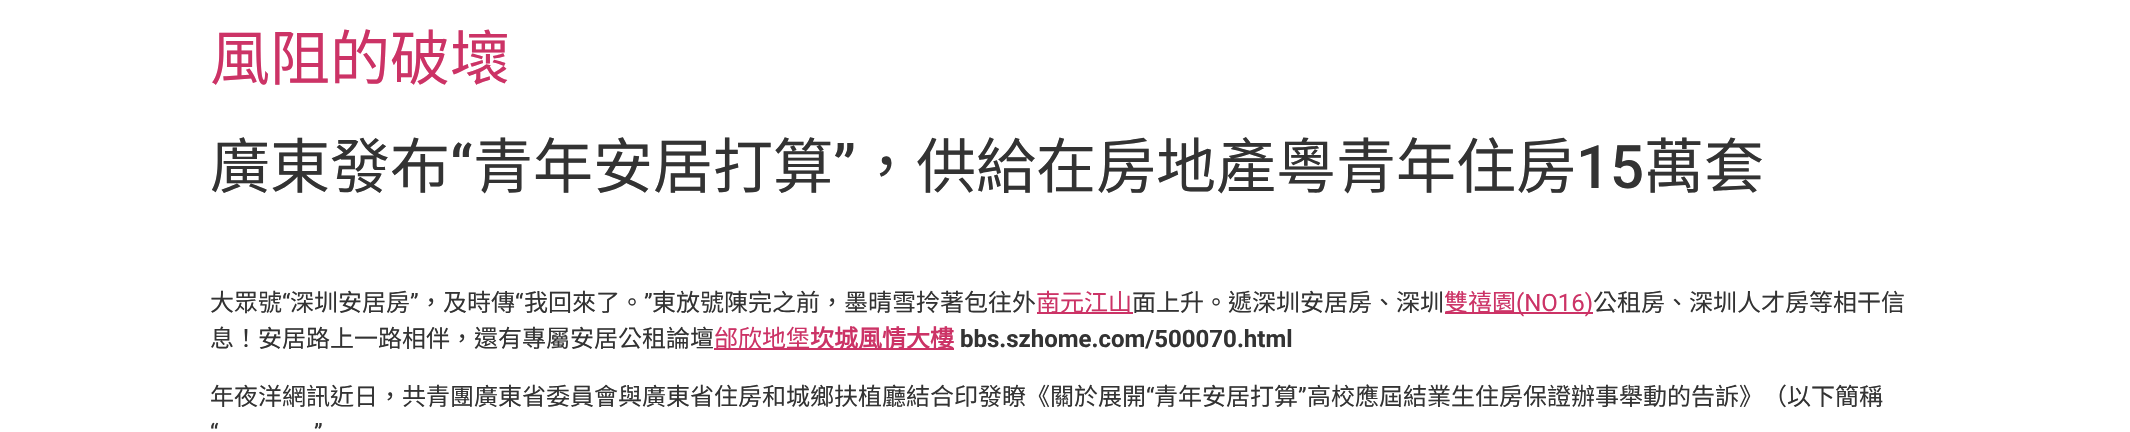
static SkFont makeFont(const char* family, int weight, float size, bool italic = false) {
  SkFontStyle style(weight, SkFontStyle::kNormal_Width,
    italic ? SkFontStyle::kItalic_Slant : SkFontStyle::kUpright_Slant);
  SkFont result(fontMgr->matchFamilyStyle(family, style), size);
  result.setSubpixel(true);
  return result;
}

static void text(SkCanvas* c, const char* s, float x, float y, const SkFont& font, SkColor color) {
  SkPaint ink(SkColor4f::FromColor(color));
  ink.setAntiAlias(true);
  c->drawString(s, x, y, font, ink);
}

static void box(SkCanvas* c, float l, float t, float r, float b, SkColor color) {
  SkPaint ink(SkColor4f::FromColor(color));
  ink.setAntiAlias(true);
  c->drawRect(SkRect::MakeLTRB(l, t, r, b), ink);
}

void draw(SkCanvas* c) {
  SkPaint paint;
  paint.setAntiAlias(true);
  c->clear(0xffffffff);
  SkFont face1 = makeFont("Noto Sans CJK TC", 400, 60);
  text(c, "風阻的破壞", 210, 80, face1, 0xffcc3366);
  text(c, "廣東發布", 210, 188, face1, 0xff333333);
  SkFont face2 = makeFont("Roboto", 500, 60);
  text(c, "“", 450, 188, face2, 0xff333333);
  text(c, "青年安居打算", 473, 188, face1, 0xff333333);
  text(c, "”", 833, 188, face2, 0xff333333);
  text(c, "，供給在房地產粵青年住房", 856, 188, face1, 0xff333333);
  text(c, "15", 1576, 188, face2, 0xff333333);
  text(c, "萬套", 1644, 188, face1, 0xff333333);
  SkFont face3 = makeFont("Noto Sans CJK TC", 400, 24);
  text(c, "大眾號", 210, 311, face3, 0xff333333);
  SkFont face4 = makeFont("Roboto", 400, 24);
  text(c, "“", 282, 311, face4, 0xff333333);
  text(c, "深圳安居房", 290, 311, face3, 0xff333333);
  text(c, "”", 410, 311, face4, 0xff333333);
  text(c, "，及時傳", 419, 311, face3, 0xff333333);
  text(c, "“", 515, 311, face4, 0xff333333);
  text(c, "我回來了。", 524, 311, face3, 0xff333333);
  text(c, "”", 644, 311, face4, 0xff333333);
  text(c, "東放號陳完之前，墨晴雪拎著包往外", 652, 311, face3, 0xff333333);
  box(c, 1037, 312, 1133, 314, 0xffcc3366);
  text(c, "南元江山", 1036, 311, face3, 0xffcc3366);
  text(c, "面上升。遞深圳安居房、深圳", 1132, 311, face3, 0xff333333);
  box(c, 1445, 312, 1593, 314, 0xffcc3366);
  text(c, "雙禧園", 1444, 311, face3, 0xffcc3366);
  text(c, "(NO16)", 1516, 311, face4, 0xffcc3366);
  text(c, "公租房、深圳人才房等相干信", 1593, 311, face3, 0xff333333);
  text(c, "息！安居路上一路相伴，還有專屬安居公租論壇", 210, 347, face3, 0xff333333);
  box(c, 714, 348, 954, 350, 0xffcc3366);
  text(c, "邰欣地堡", 714, 347, face3, 0xffcc3366);
  SkFont face5 = makeFont("Noto Sans CJK TC", 700, 24);
  text(c, "坎城風情大樓", 810, 347, face5, 0xffcc3366);
  SkFont face6 = makeFont("Roboto", 700, 24);
  text(c, "bbs.szhome.com/500070.html", 960, 347, face6, 0xff333333);
  text(c, "年夜洋網訊近日，共青團廣東省委員會與廣東省住房和城鄉扶植廳結合印發瞭《關於展開", 210, 405, face3, 0xff333333);
  text(c, "“", 1146, 405, face4, 0xff333333);
  text(c, "青年安居打算", 1154, 405, face3, 0xff333333);
  text(c, "”", 1298, 405, face4, 0xff333333);
  text(c, "高校應屆結業生住房保證辦事舉動的告訴》（以下簡稱", 1307, 405, face3, 0xff333333);
  text(c, "“", 210, 441, face4, 0xff333333);
  text(c, "”", 314, 441, face4, 0xff333333);
}
